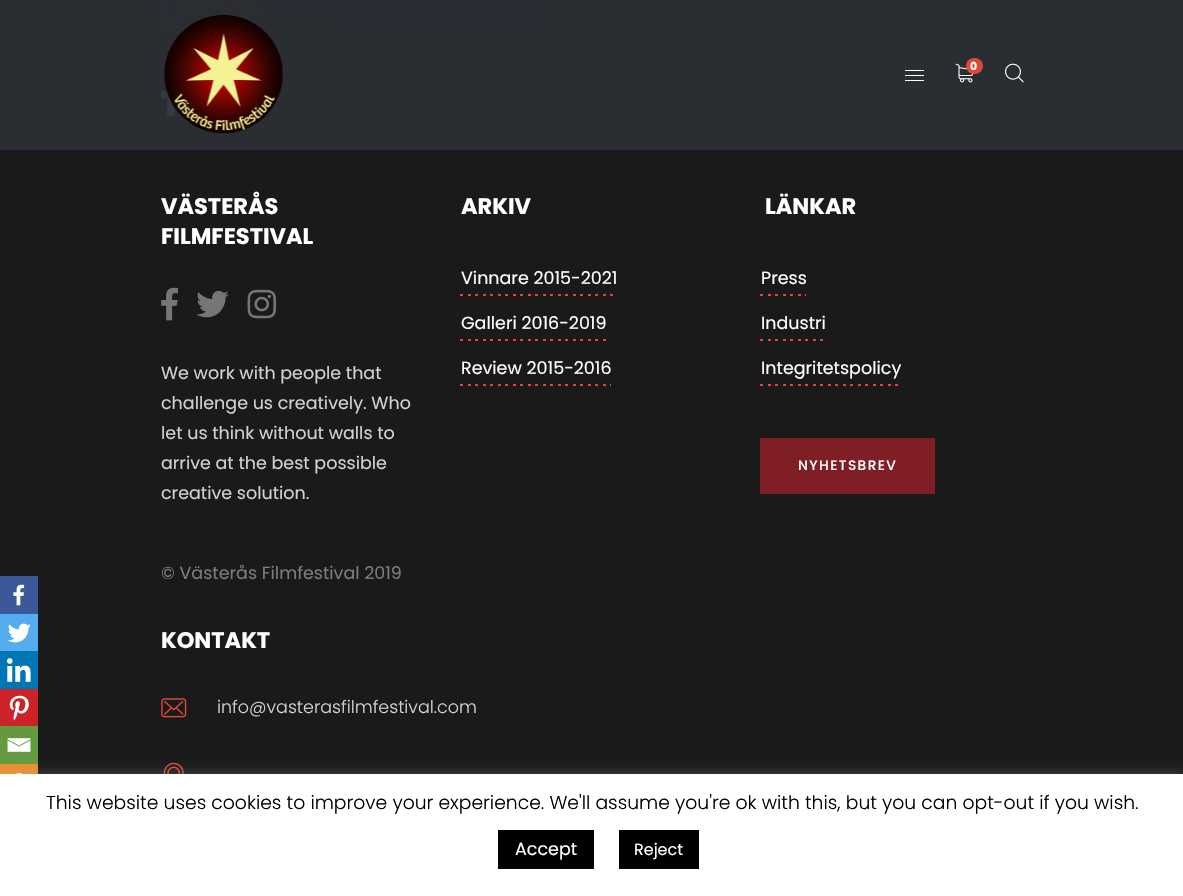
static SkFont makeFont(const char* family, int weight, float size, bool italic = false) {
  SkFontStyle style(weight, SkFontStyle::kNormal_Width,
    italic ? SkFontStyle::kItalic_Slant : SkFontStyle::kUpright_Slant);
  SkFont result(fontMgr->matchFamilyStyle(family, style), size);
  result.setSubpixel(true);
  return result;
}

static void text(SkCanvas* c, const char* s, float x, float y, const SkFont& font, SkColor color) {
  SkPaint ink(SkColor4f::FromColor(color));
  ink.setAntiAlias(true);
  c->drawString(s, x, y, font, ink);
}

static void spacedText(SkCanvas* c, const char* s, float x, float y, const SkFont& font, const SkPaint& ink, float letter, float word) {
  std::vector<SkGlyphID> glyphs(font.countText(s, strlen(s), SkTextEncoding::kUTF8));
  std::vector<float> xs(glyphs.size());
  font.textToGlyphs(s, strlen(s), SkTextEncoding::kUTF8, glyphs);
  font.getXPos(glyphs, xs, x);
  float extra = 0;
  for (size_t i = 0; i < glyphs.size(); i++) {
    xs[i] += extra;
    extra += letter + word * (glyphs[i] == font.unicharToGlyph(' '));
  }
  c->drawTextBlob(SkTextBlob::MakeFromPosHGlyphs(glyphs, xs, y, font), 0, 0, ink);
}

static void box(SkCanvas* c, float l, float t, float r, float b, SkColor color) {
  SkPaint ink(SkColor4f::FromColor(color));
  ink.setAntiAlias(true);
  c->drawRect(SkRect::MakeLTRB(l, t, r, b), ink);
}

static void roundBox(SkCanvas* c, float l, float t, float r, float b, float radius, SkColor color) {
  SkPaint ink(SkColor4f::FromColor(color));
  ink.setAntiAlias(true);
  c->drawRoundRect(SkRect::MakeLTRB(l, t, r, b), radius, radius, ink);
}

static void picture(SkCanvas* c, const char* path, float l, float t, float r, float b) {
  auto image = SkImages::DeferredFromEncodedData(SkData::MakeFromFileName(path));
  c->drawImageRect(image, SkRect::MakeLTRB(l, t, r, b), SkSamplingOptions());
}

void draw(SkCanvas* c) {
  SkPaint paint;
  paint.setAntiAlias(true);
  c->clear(0xff2a2e33);
  picture(c, "img_01.png", 161, 0, 349, 32);
  picture(c, "img_02.png", 350, 0, 538, 32);
  picture(c, "img_03.png", 161, 89, 175, 116);
  box(c, 0, 150, 1183, 774, 0xff1a1a1a);
  box(c, 0, 576, 38, 614, 0xff3c589a);
  picture(c, "img_04.png", 13, 584, 25, 606);
  box(c, 0, 614, 38, 651, 0xff55acee);
  picture(c, "img_05.png", 8, 623, 31, 643);
  box(c, 0, 651, 38, 689, 0xff0077b5);
  picture(c, "img_06.png", 6, 658, 31, 682);
  box(c, 0, 689, 38, 726, 0xffcc2329);
  picture(c, "img_07.png", 9, 695, 29, 721);
  box(c, 0, 726, 38, 764, 0xff649a3f);
  picture(c, "img_08.png", 7, 738, 31, 752);
  box(c, 0, 764, 38, 774, 0xffee8e2d);
  picture(c, "img_09.png", 16, 773, 22, 774);
  picture(c, "img_10.png", 163, 14, 284, 134);
  box(c, 905, 70, 924, 71, 0xffffffff);
  box(c, 905, 75, 924, 76, 0xffffffff);
  box(c, 905, 80, 924, 81, 0xffffffff);
  picture(c, "img_11.png", 955, 63, 974, 83);
  roundBox(c, 966, 58, 983, 74, 8, 0xffdc493a);
  SkFont face1 = makeFont("Poppins", 700, 11);
  text(c, "0", 970, 70, face1, 0xffffffff);
  picture(c, "img_12.png", 1005, 63, 1024, 83);
  SkFont face2 = makeFont("Poppins", 700, 22.5f);
  text(c, "VÄSTERÅS", 161, 214, face2, 0xffffffff);
  text(c, "FILMFESTIVAL", 161, 244, face2, 0xffffffff);
  picture(c, "img_13.png", 161, 287, 178, 321);
  picture(c, "img_14.png", 196, 290, 229, 318);
  picture(c, "img_15.png", 247, 289, 276, 319);
  SkFont face3 = makeFont("Poppins", 400, 17.5f);
  text(c, "We work with people that", 161, 379, face3, 0xffd1d1d1);
  text(c, "challenge us creatively. Who", 161, 409, face3, 0xffd1d1d1);
  text(c, "let us think without walls to", 161, 439, face3, 0xffd1d1d1);
  text(c, "arrive at the best possible", 161, 469, face3, 0xffd1d1d1);
  text(c, "creative solution.", 161, 499, face3, 0xffd1d1d1);
  text(c, "© Västerås Filmfestival 2019", 161, 579, face3, 0xff7c7c7c);
  text(c, "ARKIV", 461, 214, face2, 0xffffffff);
  text(c, "Vinnare 2015-2021", 461, 284, face3, 0xffffffff);
  picture(c, "img_16.png", 460, 294, 613, 296);
  text(c, "Galleri 2016-2019", 461, 329, face3, 0xffffffff);
  box(c, 460, 339, 463, 341, 0xffdc493a);
  box(c, 468, 339, 471, 341, 0xffdc493a);
  box(c, 475, 339, 478, 341, 0xffdc493a);
  box(c, 483, 339, 486, 341, 0xffdc493a);
  box(c, 490, 339, 493, 341, 0xffdc493a);
  box(c, 498, 339, 501, 341, 0xffdc493a);
  box(c, 505, 339, 508, 341, 0xffdc493a);
  box(c, 513, 339, 516, 341, 0xffdc493a);
  box(c, 520, 339, 523, 341, 0xffdc493a);
  box(c, 528, 339, 531, 341, 0xffdc493a);
  box(c, 535, 339, 538, 341, 0xffdc493a);
  box(c, 543, 339, 546, 341, 0xffdc493a);
  box(c, 550, 339, 553, 341, 0xffdc493a);
  box(c, 558, 339, 561, 341, 0xffdc493a);
  box(c, 565, 339, 568, 341, 0xffdc493a);
  box(c, 573, 339, 576, 341, 0xffdc493a);
  box(c, 580, 339, 583, 341, 0xffdc493a);
  box(c, 588, 339, 591, 341, 0xffdc493a);
  box(c, 595, 339, 598, 341, 0xffdc493a);
  box(c, 603, 339, 606, 341, 0xffdc493a);
  text(c, "Review 2015-2016", 461, 374, face3, 0xffffffff);
  picture(c, "img_17.png", 460, 384, 611, 386);
  text(c, "LÄNKAR", 765, 214, face2, 0xffffffff);
  text(c, "Press", 761, 284, face3, 0xffffffff);
  box(c, 760, 294, 763, 296, 0xffdc493a);
  box(c, 768, 294, 771, 296, 0xffdc493a);
  box(c, 775, 294, 778, 296, 0xffdc493a);
  box(c, 783, 294, 786, 296, 0xffdc493a);
  box(c, 790, 294, 793, 296, 0xffdc493a);
  box(c, 798, 294, 801, 296, 0xffdc493a);
  box(c, 805, 294, 806, 296, 0xffdc493a);
  text(c, "Industri", 761, 329, face3, 0xffffffff);
  box(c, 760, 339, 763, 341, 0xffdc493a);
  box(c, 768, 339, 771, 341, 0xffdc493a);
  box(c, 775, 339, 778, 341, 0xffdc493a);
  box(c, 783, 339, 786, 341, 0xffdc493a);
  box(c, 790, 339, 793, 341, 0xffdc493a);
  box(c, 798, 339, 801, 341, 0xffdc493a);
  box(c, 805, 339, 808, 341, 0xffdc493a);
  box(c, 813, 339, 816, 341, 0xffdc493a);
  box(c, 820, 339, 823, 341, 0xffdc493a);
  text(c, "Integritetspolicy", 761, 374, face3, 0xffffffff);
  box(c, 760, 384, 763, 386, 0xffdc493a);
  box(c, 768, 384, 771, 386, 0xffdc493a);
  box(c, 775, 384, 778, 386, 0xffdc493a);
  box(c, 783, 384, 786, 386, 0xffdc493a);
  box(c, 790, 384, 793, 386, 0xffdc493a);
  box(c, 798, 384, 801, 386, 0xffdc493a);
  box(c, 805, 384, 808, 386, 0xffdc493a);
  box(c, 813, 384, 816, 386, 0xffdc493a);
  box(c, 820, 384, 823, 386, 0xffdc493a);
  box(c, 828, 384, 831, 386, 0xffdc493a);
  box(c, 835, 384, 838, 386, 0xffdc493a);
  box(c, 843, 384, 846, 386, 0xffdc493a);
  box(c, 850, 384, 853, 386, 0xffdc493a);
  box(c, 858, 384, 861, 386, 0xffdc493a);
  box(c, 865, 384, 868, 386, 0xffdc493a);
  box(c, 873, 384, 876, 386, 0xffdc493a);
  box(c, 880, 384, 883, 386, 0xffdc493a);
  box(c, 888, 384, 891, 386, 0xffdc493a);
  box(c, 895, 384, 898, 386, 0xffdc493a);
  box(c, 760, 438, 935, 494, 0xff801e26);
  SkFont face4 = makeFont("Poppins", 500, 13.75f);
  paint.setColor(0xffffffff);
  spacedText(c, "NYHETSBREV", 798, 470, face4, paint, 1.4f, 0);
  text(c, "KONTAKT", 161, 648, face2, 0xffffffff);
  picture(c, "img_18.png", 161, 698, 187, 718);
  SkFont face5 = makeFont("Poppins", 300, 17.5f);
  text(c, "info@vasterasfilmfestival.com", 217, 713, face5, 0xffd1d1d1);
  picture(c, "img_19.png", 163, 762, 184, 774);
  paint.setColor(0x4dacabab);
  paint.setMaskFilter(SkMaskFilter::MakeBlur(kNormal_SkBlurStyle, 6));
  c->drawRect(SkRect::MakeLTRB(0, 773, 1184, 895), paint);
  paint.setMaskFilter(nullptr);
  box(c, 0, 774, 1183, 896, 0xffffffff);
  SkFont face6 = makeFont("Poppins", 300, 18.75f);
  text(c, "This website uses cookies to improve your experience. We'll assume you're ok with this, but you can opt-out if you wish.", 46, 809, face6, 0xff000000);
  box(c, 498, 830, 594, 869, 0xff000000);
  text(c, "Accept", 515, 855, face3, 0xffffffff);
  box(c, 619, 830, 699, 869, 0xff000000);
  SkFont face7 = makeFont("Poppins", 400, 16);
  text(c, "Reject", 634, 855, face7, 0xffffffff);
}
